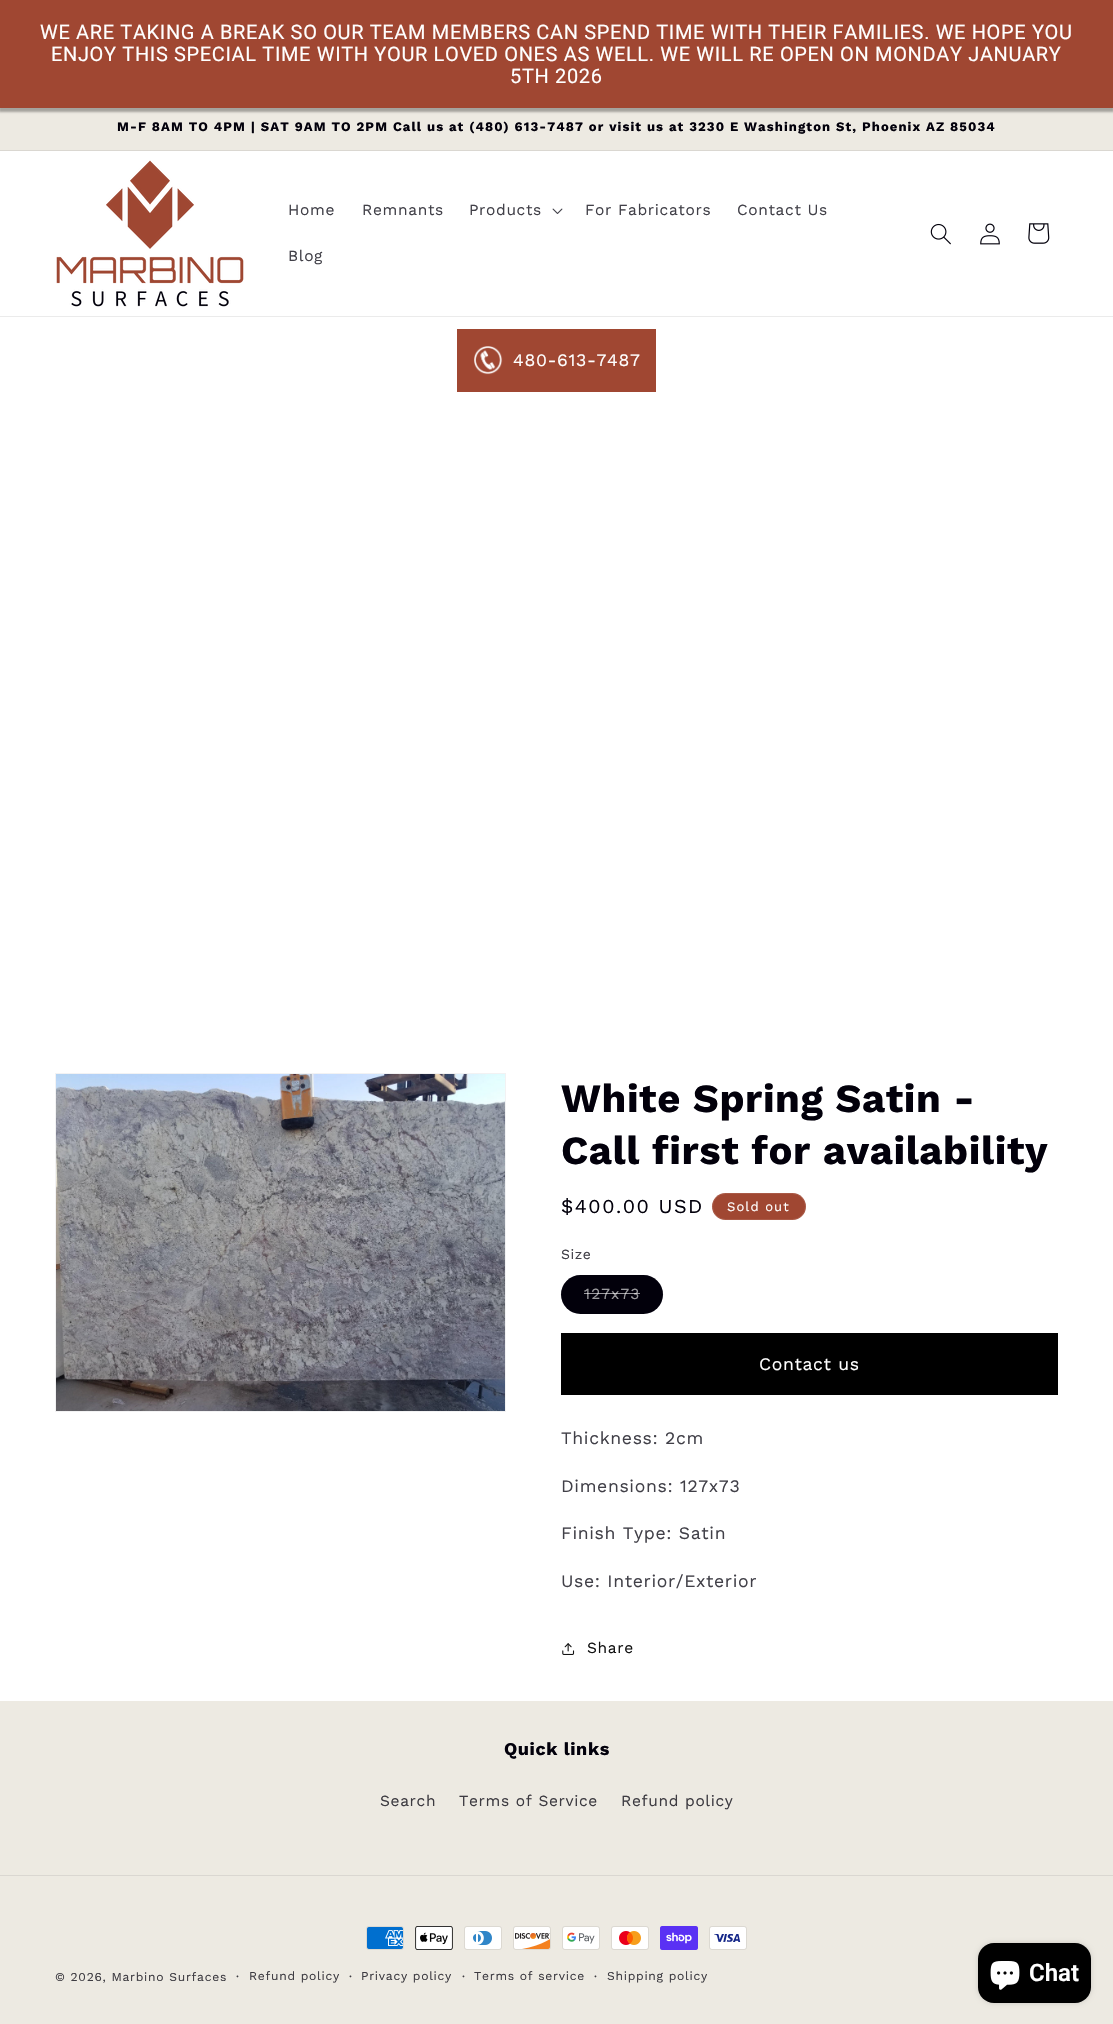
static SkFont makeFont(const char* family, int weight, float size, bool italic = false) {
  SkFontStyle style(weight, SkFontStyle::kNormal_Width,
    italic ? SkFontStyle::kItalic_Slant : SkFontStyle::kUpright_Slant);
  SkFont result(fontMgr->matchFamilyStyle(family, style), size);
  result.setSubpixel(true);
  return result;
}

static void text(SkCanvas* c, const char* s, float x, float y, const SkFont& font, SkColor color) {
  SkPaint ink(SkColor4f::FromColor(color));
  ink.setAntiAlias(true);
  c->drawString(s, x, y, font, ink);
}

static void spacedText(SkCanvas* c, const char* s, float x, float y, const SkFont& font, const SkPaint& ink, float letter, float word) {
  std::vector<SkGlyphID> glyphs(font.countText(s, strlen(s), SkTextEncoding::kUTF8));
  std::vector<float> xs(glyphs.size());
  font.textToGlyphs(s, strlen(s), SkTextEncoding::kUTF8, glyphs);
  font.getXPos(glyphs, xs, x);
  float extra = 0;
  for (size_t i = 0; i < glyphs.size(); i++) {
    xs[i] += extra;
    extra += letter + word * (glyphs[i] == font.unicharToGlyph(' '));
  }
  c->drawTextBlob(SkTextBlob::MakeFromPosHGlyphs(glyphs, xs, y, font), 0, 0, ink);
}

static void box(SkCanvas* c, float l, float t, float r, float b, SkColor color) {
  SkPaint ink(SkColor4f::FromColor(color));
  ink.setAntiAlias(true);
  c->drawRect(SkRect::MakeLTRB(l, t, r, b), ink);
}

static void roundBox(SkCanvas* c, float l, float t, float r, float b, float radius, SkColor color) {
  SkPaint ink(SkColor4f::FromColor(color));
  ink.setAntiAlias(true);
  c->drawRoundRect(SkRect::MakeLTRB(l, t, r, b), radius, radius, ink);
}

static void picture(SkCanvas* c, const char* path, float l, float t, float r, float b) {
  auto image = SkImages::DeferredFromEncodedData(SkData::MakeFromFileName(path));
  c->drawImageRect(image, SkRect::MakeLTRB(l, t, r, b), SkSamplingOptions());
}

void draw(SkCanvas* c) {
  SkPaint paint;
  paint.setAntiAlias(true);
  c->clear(0xffffffff);
  box(c, 0, 108, 1113, 150, 0xffedeae2);
  paint.setColor(0x4d000000);
  paint.setMaskFilter(SkMaskFilter::MakeBlur(kNormal_SkBlurStyle, 1));
  c->drawRect(SkRect::MakeLTRB(-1, 2, 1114, 112), paint);
  paint.setMaskFilter(nullptr);
  box(c, 0, 0, 1113, 108, 0xffa04732);
  SkFont face1 = makeFont("Roboto", 400, 20);
  paint.setColor(0xffffffff);
  spacedText(c, "WE ARE TAKING A BREAK SO OUR TEAM MEMBERS CAN SPEND TIME WITH THEIR FAMILIES. WE HOPE YOU", 40, 39, face1, paint, 0.65f, 0);
  spacedText(c, "ENJOY THIS SPECIAL TIME WITH YOUR LOVED ONES AS WELL. WE WILL RE OPEN ON MONDAY JANUARY", 51, 61, face1, paint, 0.65f, 0);
  spacedText(c, "5TH 2026", 510, 83, face1, paint, 0.65f, 0);
  box(c, 0, 150, 1113, 151, 0xffdad7d1);
  SkFont face2 = makeFont("Work Sans", 700, 13);
  paint.setColor(0xff02000b);
  spacedText(c, "M-F 8AM TO 4PM | SAT 9AM TO 2PM Call us at (480) 613-7487 or visit us at 3230 E Washington St, Phoenix AZ 85034", 117, 131, face2, paint, 1.1f, 0);
  box(c, 0, 316, 1113, 317, 0xffebebeb);
  picture(c, "img_01.png", 56, 160, 244, 307);
  SkFont face3 = makeFont("Work Sans", 400, 15.5f);
  paint.setColor(0xff414048);
  spacedText(c, "Home", 288, 215, face3, paint, 0.65f, 0);
  spacedText(c, "Remnants", 362, 215, face3, paint, 0.65f, 0);
  spacedText(c, "Products", 469, 215, face3, paint, 0.65f, 0);
  picture(c, "img_02.png", 552, 208, 563, 214);
  spacedText(c, "For Fabricators", 585, 215, face3, paint, 0.65f, 0);
  spacedText(c, "Contact Us", 737, 215, face3, paint, 0.65f, 0);
  spacedText(c, "Blog", 288, 261, face3, paint, 0.65f, 0);
  picture(c, "img_03.png", 930, 223, 951, 245);
  picture(c, "img_04.png", 980, 223, 1000, 245);
  picture(c, "img_05.png", 1028, 223, 1050, 244);
  box(c, 457, 329, 656, 392, 0xffa04732);
  picture(c, "img_06.png", 474, 346, 503, 375);
  SkFont face4 = makeFont("Work Sans", 400, 17.6f);
  paint.setColor(0xffffffff);
  spacedText(c, "480-613-7487", 513, 366, face4, paint, 0.65f, 0);
  paint.setStyle(SkPaint::kStroke_Style);
  paint.setStrokeWidth(1);
  paint.setColor(0xfff2f2f3);
  c->drawRect(SkRect::MakeLTRB(55.5f, 1073.5f, 505.5f, 1411.5f), paint);
  picture(c, "img_07.png", 56, 1074, 505, 1411);
  SkFont face5 = makeFont("Work Sans", 700, 40);
  paint.setStyle(SkPaint::kFill_Style);
  paint.setColor(0xff02000b);
  spacedText(c, "White Spring Satin -", 561, 1112, face5, paint, 0.6f, 0);
  spacedText(c, "Call first for availability", 561, 1164, face5, paint, 0.6f, 0);
  SkFont face6 = makeFont("Work Sans", 400, 19.75f);
  spacedText(c, "$400.00 USD", 561, 1213, face6, paint, 1.5f, 0);
  roundBox(c, 712, 1193, 806, 1220, 13.5f, 0xffa04732);
  paint.setStyle(SkPaint::kStroke_Style);
  paint.setColor(0x1affffff);
  c->drawRoundRect(SkRect::MakeLTRB(712.5f, 1193.5f, 805.5f, 1219.5f), 13, 13, paint);
  SkFont face7 = makeFont("Work Sans", 400, 13);
  paint.setStyle(SkPaint::kFill_Style);
  paint.setColor(0xffffffff);
  spacedText(c, "Sold out", 727, 1211, face7, paint, 1.1f, 0);
  SkFont face8 = makeFont("Work Sans", 400, 14);
  paint.setColor(0xff414048);
  spacedText(c, "Size", 561, 1259, face8, paint, 0.5f, 0);
  roundBox(c, 561, 1275, 663, 1314, 19.5f, 0xff02000b);
  paint.setStyle(SkPaint::kStroke_Style);
  paint.setColor(0x1a02000b);
  c->drawRoundRect(SkRect::MakeLTRB(561.5f, 1275.5f, 662.5f, 1313.5f), 19, 19, paint);
  paint.setStyle(SkPaint::kFill_Style);
  paint.setColor(0xff9a999d);
  spacedText(c, "127x73", 584, 1299, face3, paint, 1.1f, 0);
  box(c, 584, 1293, 640, 1294, 0x99ffffff);
  box(c, 561, 1333, 1058, 1395, 0xff000000);
  paint.setColor(0xffffffff);
  spacedText(c, "Contact us", 759, 1370, face4, paint, 0.65f, 0);
  paint.setColor(0xff414048);
  spacedText(c, "Thickness: 2cm", 561, 1444, face4, paint, 0.65f, 0);
  spacedText(c, "Dimensions: 127x73", 561, 1492, face4, paint, 0.65f, 0);
  spacedText(c, "Finish Type: Satin", 561, 1539, face4, paint, 0.65f, 0);
  spacedText(c, "Use: Interior/Exterior", 561, 1587, face4, paint, 0.65f, 0);
  picture(c, "img_08.png", 562, 1643, 575, 1655);
  paint.setColor(0xff121212);
  spacedText(c, "Share", 587, 1653, face3, paint, 0.65f, 0);
  box(c, 0, 1701, 1113, 2024, 0xffedeae2);
  SkFont face9 = makeFont("Work Sans", 700, 18);
  paint.setColor(0xff02000b);
  spacedText(c, "Quick links", 504, 1755, face9, paint, 0.6f, 0);
  paint.setColor(0xff3d3b41);
  spacedText(c, "Search", 380, 1806, face3, paint, 0.65f, 0);
  spacedText(c, "Terms of Service", 459, 1806, face3, paint, 0.65f, 0);
  spacedText(c, "Refund policy", 621, 1806, face3, paint, 0.65f, 0);
  box(c, 0, 1875, 1113, 1876, 0xffdad7d1);
  picture(c, "img_09.png", 366, 1926, 404, 1950);
  picture(c, "img_10.png", 415, 1926, 453, 1950);
  picture(c, "img_11.png", 464, 1926, 502, 1950);
  picture(c, "img_12.png", 513, 1926, 551, 1950);
  picture(c, "img_13.png", 562, 1926, 600, 1950);
  picture(c, "img_14.png", 611, 1926, 649, 1950);
  picture(c, "img_15.png", 660, 1926, 698, 1950);
  picture(c, "img_16.png", 709, 1926, 747, 1950);
  SkFont face10 = makeFont("Work Sans", 400, 12.1f);
  spacedText(c, "© 2026, Marbino Surfaces", 55, 1981, face10, paint, 0.75f, 0);
  spacedText(c, "·", 236, 1981, face7, paint, 0.75f, 0);
  spacedText(c, "Refund policy", 249, 1980, face10, paint, 0.75f, 0);
  spacedText(c, "·", 349, 1981, face7, paint, 0.75f, 0);
  spacedText(c, "Privacy policy", 361, 1980, face10, paint, 0.75f, 0);
  spacedText(c, "·", 462, 1981, face7, paint, 0.75f, 0);
  spacedText(c, "Terms of service", 474, 1980, face10, paint, 0.75f, 0);
  spacedText(c, "·", 594, 1981, face7, paint, 0.75f, 0);
  spacedText(c, "Shipping policy", 607, 1980, face10, paint, 0.75f, 0);
  paint.setColor(0x26000000);
  paint.setMaskFilter(SkMaskFilter::MakeBlur(kNormal_SkBlurStyle, 2.5f));
  c->drawRoundRect(SkRect::MakeLTRB(978, 1943, 1091, 2003), 16, 16, paint);
  paint.setMaskFilter(nullptr);
  roundBox(c, 978, 1943, 1091, 2003, 16, 0xff000000);
  picture(c, "img_17.png", 990, 1961, 1020, 1990);
  SkFont face11 = makeFont("Roboto", 600, 24);
  text(c, "Chat", 1029, 1981, face11, 0xffffffff);
}
